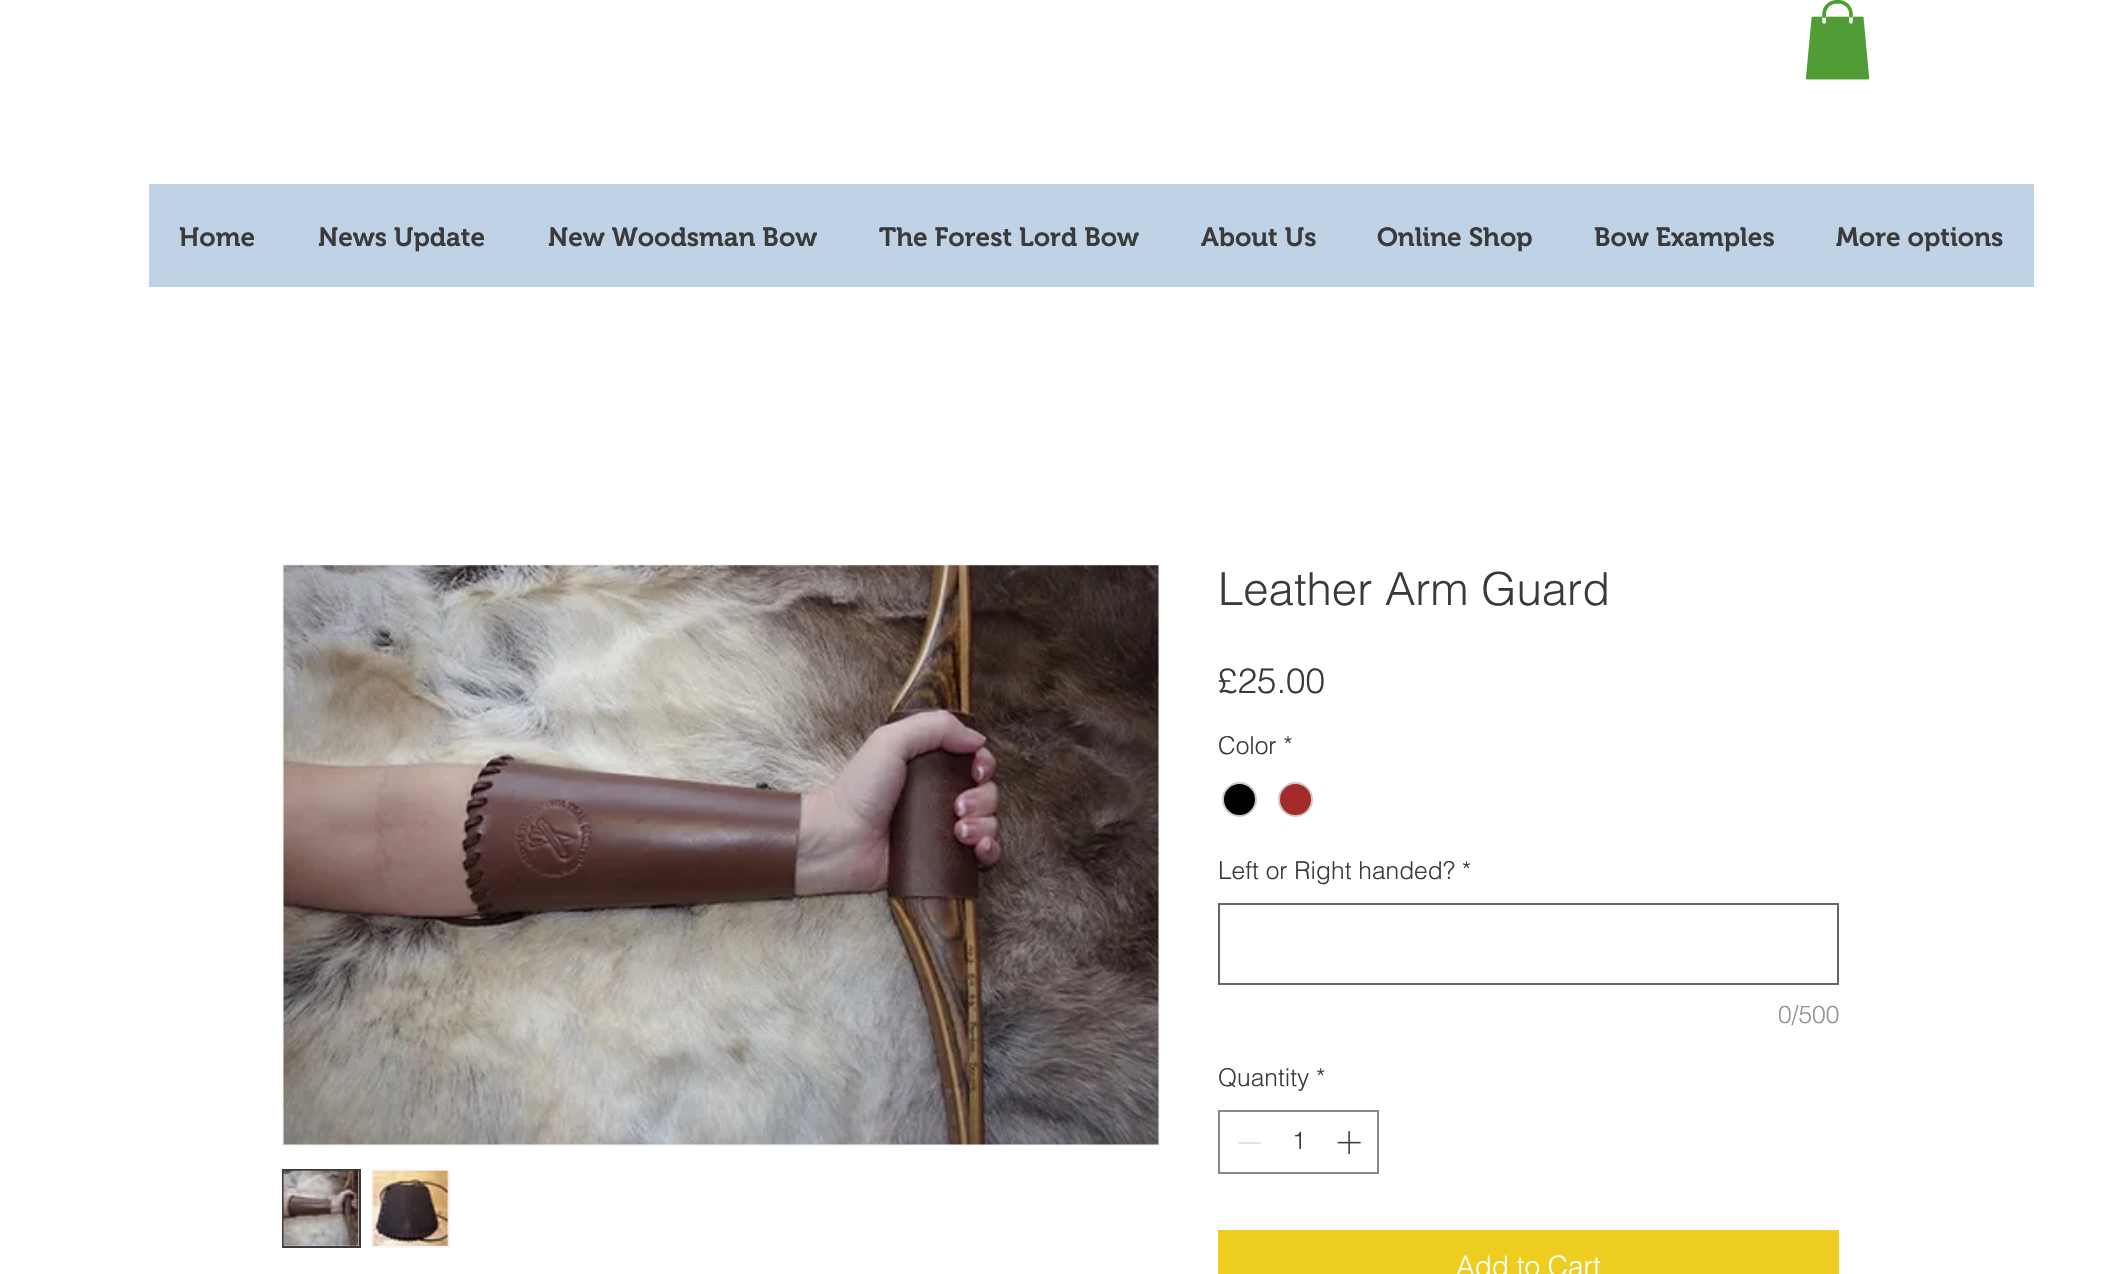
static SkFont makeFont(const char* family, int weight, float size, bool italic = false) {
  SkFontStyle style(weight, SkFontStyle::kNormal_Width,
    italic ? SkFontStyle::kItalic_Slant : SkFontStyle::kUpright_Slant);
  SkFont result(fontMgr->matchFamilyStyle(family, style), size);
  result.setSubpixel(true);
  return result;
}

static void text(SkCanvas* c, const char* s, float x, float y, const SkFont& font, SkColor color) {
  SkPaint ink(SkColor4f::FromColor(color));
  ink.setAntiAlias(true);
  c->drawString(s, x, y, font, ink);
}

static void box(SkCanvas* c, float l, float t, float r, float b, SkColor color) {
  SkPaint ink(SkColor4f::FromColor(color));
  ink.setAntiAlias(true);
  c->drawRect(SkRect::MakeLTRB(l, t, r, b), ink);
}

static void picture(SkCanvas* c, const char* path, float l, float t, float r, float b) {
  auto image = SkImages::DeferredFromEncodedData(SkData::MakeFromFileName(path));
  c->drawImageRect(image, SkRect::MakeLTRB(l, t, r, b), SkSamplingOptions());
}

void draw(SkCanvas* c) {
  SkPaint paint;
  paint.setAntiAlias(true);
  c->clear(0xffffffff);
  picture(c, "img_01.png", 1805, 0, 1870, 80);
  box(c, 149, 184, 2034, 287, 0xffc0d2e5);
  SkFont face1 = makeFont("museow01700", 600, 26.25f);
  text(c, "Home", 179, 246, face1, 0xff3b3a3a);
  text(c, "News Update", 318, 246, face1, 0xff3b3a3a);
  text(c, "New Woodsman Bow", 548, 246, face1, 0xff3b3a3a);
  text(c, "The Forest Lord Bow", 879, 246, face1, 0xff3b3a3a);
  text(c, "About Us", 1201, 246, face1, 0xff3b3a3a);
  text(c, "Online Shop", 1377, 246, face1, 0xff3b3a3a);
  text(c, "Bow Examples", 1594, 246, face1, 0xff3b3a3a);
  text(c, "More options", 1836, 246, face1, 0xff3b3a3a);
  paint.setStyle(SkPaint::kStroke_Style);
  paint.setStrokeWidth(2);
  paint.setColor(0xfff7f7f7);
  c->drawRect(SkRect::MakeLTRB(283, 565, 1159, 1145), paint);
  picture(c, "img_02.png", 283, 565, 1159, 1145);
  paint.setStyle(SkPaint::kFill_Style);
  c->drawRect(SkRect::MakeLTRB(283, 1170, 360, 1247), paint);
  paint.setStyle(SkPaint::kStroke_Style);
  paint.setColor(0xff3b3a3a);
  c->drawRect(SkRect::MakeLTRB(283, 1170, 360, 1247), paint);
  picture(c, "img_03.png", 283, 1170, 359, 1247);
  box(c, 371, 1169, 450, 1248, 0xfff7f7f7);
  picture(c, "img_04.png", 372, 1170, 449, 1247);
  SkFont face2 = makeFont("helvetica", 300, 45.5f);
  text(c, "Leather Arm Guard", 1218, 605, face2, 0xff3b3a3a);
  SkFont face3 = makeFont("helvetica", 300, 35);
  text(c, "£25.00", 1218, 693, face3, 0xff3b3a3a);
  SkFont face4 = makeFont("helvetica", 300, 24.5f);
  text(c, "Color *", 1218, 754, face4, 0xff3b3a3a);
  paint.setStyle(SkPaint::kFill_Style);
  paint.setColor(0xff000000);
  c->drawCircle(1239.5f, 799.5f, 16.5f, paint);
  paint.setStyle(SkPaint::kStroke_Style);
  paint.setColor(0xffc9c9c9);
  c->drawCircle(1239.5f, 799.5f, 16.5f, paint);
  paint.setStyle(SkPaint::kFill_Style);
  paint.setColor(0xffa52a2a);
  c->drawCircle(1295.5f, 799.5f, 16.5f, paint);
  paint.setStyle(SkPaint::kStroke_Style);
  paint.setColor(0xffc9c9c9);
  c->drawCircle(1295.5f, 799.5f, 16.5f, paint);
  text(c, "Left or Right handed? *", 1218, 879, face4, 0xff3b3a3a);
  paint.setColor(0xff666666);
  c->drawRect(SkRect::MakeLTRB(1219, 904, 1838, 984), paint);
  text(c, "0/500", 1778, 1023, face4, 0xff949494);
  text(c, "Quantity *", 1218, 1086, face4, 0xff3b3a3a);
  paint.setColor(0xff898989);
  c->drawRect(SkRect::MakeLTRB(1219, 1111, 1378, 1173), paint);
  box(c, 1238, 1142, 1261, 1144, 0xffe3e3e3);
  text(c, "1", 1292, 1149, face4, 0xff3b3a3a);
  picture(c, "img_05.png", 1337, 1131, 1361, 1155);
  box(c, 1218, 1230, 1839, 1274, 0xffedcd1f);
  SkFont face5 = makeFont("helvetica", 300, 28);
  text(c, "Add to Cart", 1456, 1276, face5, 0xffffffff);
}
